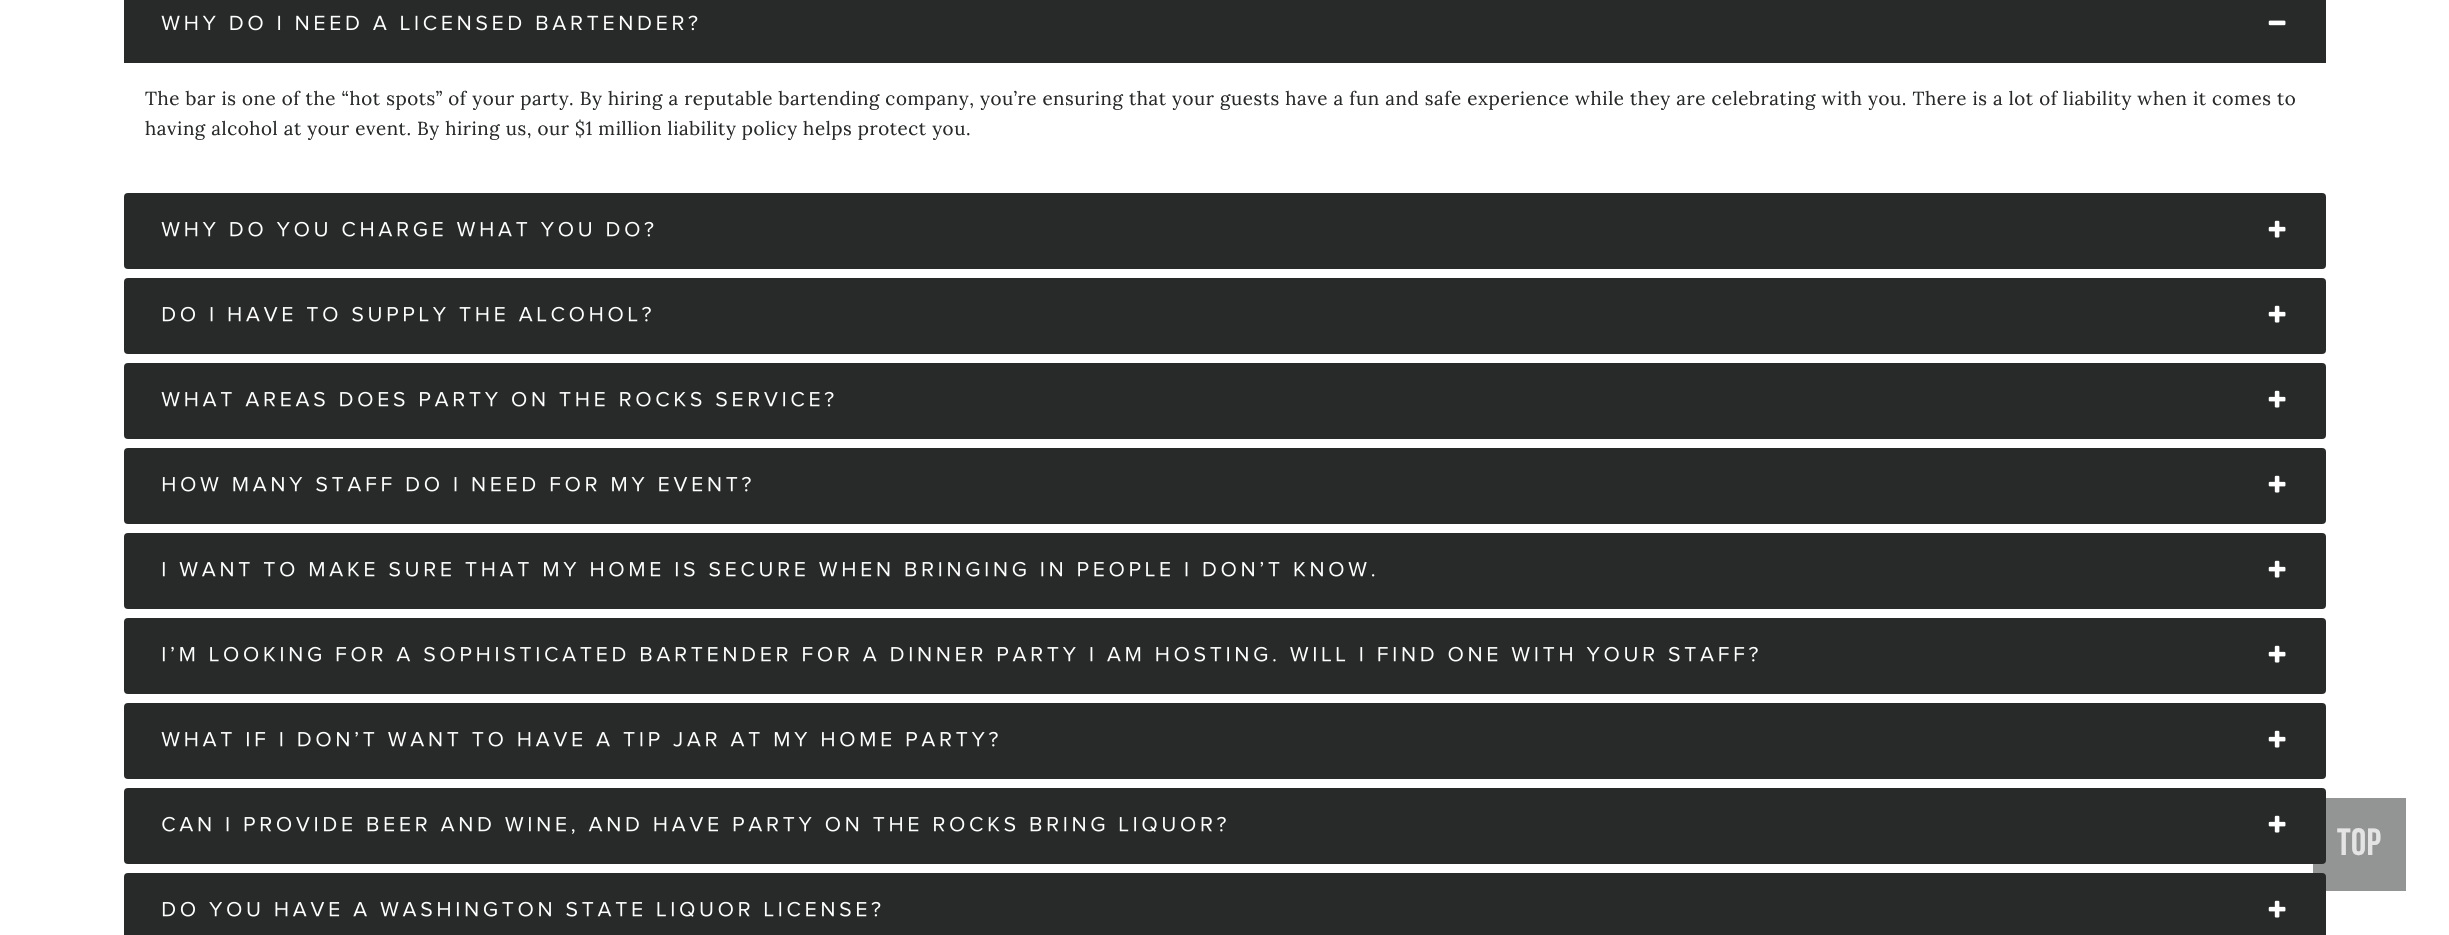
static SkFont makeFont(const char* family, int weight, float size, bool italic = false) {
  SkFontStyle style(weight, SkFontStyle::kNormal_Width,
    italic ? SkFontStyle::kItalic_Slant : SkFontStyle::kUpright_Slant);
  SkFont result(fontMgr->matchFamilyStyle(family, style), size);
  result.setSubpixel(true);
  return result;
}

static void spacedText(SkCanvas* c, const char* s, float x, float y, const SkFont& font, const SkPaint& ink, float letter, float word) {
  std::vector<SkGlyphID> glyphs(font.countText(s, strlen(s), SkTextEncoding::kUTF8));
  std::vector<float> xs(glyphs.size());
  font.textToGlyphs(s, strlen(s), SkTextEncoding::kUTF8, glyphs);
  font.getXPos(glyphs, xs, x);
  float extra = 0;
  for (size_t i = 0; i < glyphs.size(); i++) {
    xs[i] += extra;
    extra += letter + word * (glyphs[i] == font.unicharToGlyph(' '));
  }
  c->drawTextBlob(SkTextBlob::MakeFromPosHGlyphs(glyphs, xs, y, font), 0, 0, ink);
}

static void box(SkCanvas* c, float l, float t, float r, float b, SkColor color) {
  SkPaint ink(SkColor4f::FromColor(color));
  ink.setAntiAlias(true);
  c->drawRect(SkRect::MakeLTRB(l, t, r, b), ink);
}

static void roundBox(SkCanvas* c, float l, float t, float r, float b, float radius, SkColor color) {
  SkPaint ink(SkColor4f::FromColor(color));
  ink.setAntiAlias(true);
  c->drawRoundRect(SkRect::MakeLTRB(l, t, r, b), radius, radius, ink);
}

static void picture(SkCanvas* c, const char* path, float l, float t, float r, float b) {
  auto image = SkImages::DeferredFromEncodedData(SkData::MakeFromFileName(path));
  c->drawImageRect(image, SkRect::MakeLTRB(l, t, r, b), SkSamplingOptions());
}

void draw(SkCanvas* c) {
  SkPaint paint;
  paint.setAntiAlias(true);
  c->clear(0xffffffff);
  box(c, 124, 0, 2326, 63, 0xff282a2a);
  picture(c, "img_01.png", 161, 15, 698, 31);
  picture(c, "img_02.png", 2268, 20, 2286, 26);
  SkFont face1 = makeFont("Lora", 400, 18.75f);
  paint.setColor(0xff282a2a);
  spacedText(c, "The bar is one of the “hot spots” of your party. By hiring a reputable bartending company, you’re ensuring that your guests have a fun and safe experience while they are celebrating with you. There is a lot of liability when it comes to", 145, 105, face1, paint, 0.56f, 0);
  spacedText(c, "having alcohol at your event. By hiring us, our $1 million liability policy helps protect you.", 145, 135, face1, paint, 0.56f, 0);
  roundBox(c, 124, 193, 2326, 269, 4, 0xff282a2a);
  picture(c, "img_03.png", 161, 221, 654, 237);
  picture(c, "img_04.png", 2268, 220, 2286, 238);
  roundBox(c, 124, 278, 2326, 354, 4, 0xff282a2a);
  picture(c, "img_05.png", 162, 306, 651, 322);
  picture(c, "img_04.png", 2268, 305, 2286, 323);
  roundBox(c, 124, 363, 2326, 439, 4, 0xff282a2a);
  picture(c, "img_06.png", 161, 391, 834, 407);
  picture(c, "img_04.png", 2268, 390, 2286, 408);
  roundBox(c, 124, 448, 2326, 524, 4, 0xff282a2a);
  picture(c, "img_07.png", 162, 476, 751, 492);
  picture(c, "img_04.png", 2268, 475, 2286, 493);
  roundBox(c, 124, 533, 2326, 609, 4, 0xff282a2a);
  picture(c, "img_08.png", 162, 561, 1375, 577);
  picture(c, "img_04.png", 2268, 560, 2286, 578);
  roundBox(c, 124, 618, 2326, 694, 4, 0xff282a2a);
  picture(c, "img_09.png", 162, 646, 1758, 662);
  picture(c, "img_04.png", 2268, 645, 2286, 663);
  roundBox(c, 124, 703, 2326, 779, 4, 0xff282a2a);
  picture(c, "img_10.png", 161, 731, 998, 747);
  picture(c, "img_04.png", 2268, 730, 2286, 748);
  roundBox(c, 124, 788, 2326, 864, 4, 0xff282a2a);
  picture(c, "img_11.png", 162, 816, 1226, 834);
  picture(c, "img_04.png", 2268, 815, 2286, 833);
  roundBox(c, 124, 873, 2326, 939, 4, 0xff282a2a);
  picture(c, "img_12.png", 162, 901, 881, 917);
  picture(c, "img_04.png", 2268, 900, 2286, 918);
  box(c, 2313, 798, 2406, 891, 0x80282a2a);
  SkFont face2 = makeFont("Bebas Neue", 700, 38);
  paint.setColor(0xffe4e4e4);
  spacedText(c, "TOP", 2337, 855, face2, paint, 0.5f, 0);
}
